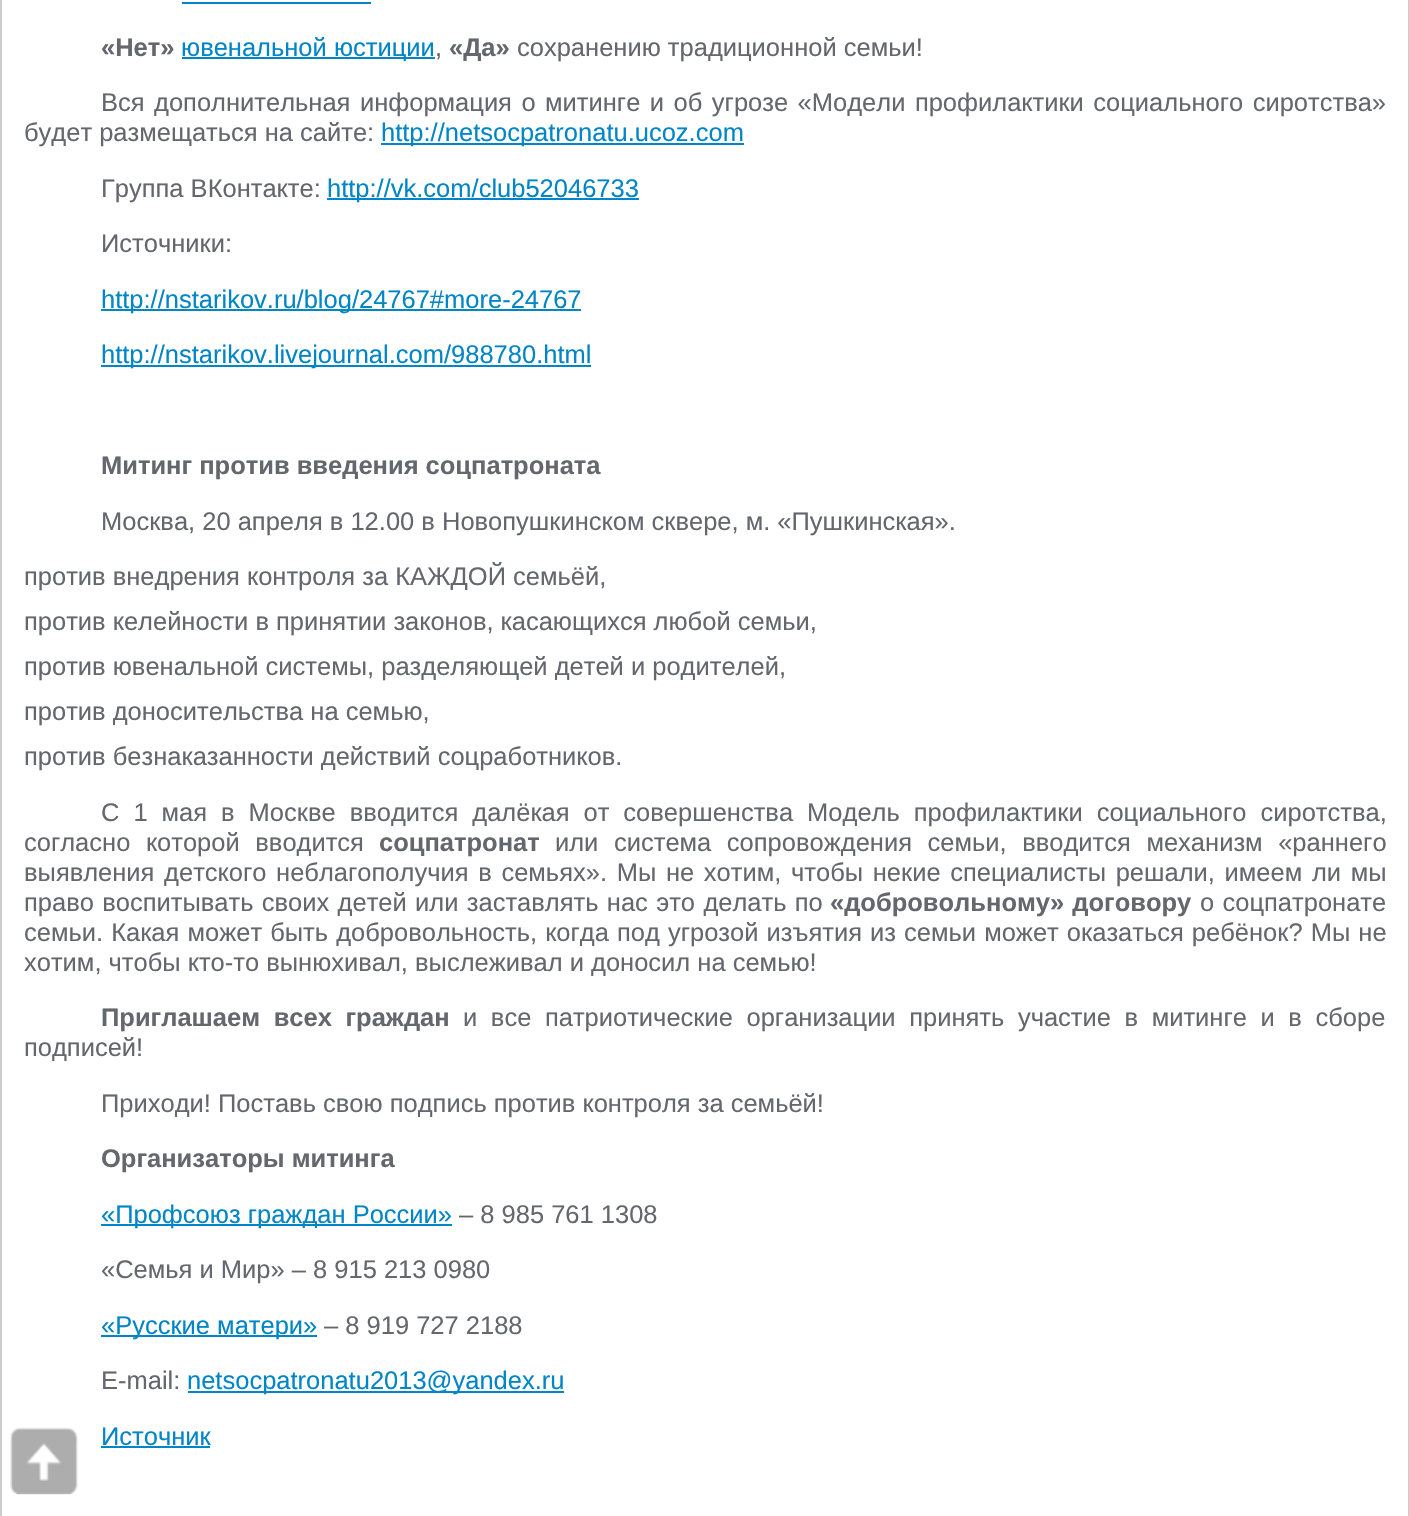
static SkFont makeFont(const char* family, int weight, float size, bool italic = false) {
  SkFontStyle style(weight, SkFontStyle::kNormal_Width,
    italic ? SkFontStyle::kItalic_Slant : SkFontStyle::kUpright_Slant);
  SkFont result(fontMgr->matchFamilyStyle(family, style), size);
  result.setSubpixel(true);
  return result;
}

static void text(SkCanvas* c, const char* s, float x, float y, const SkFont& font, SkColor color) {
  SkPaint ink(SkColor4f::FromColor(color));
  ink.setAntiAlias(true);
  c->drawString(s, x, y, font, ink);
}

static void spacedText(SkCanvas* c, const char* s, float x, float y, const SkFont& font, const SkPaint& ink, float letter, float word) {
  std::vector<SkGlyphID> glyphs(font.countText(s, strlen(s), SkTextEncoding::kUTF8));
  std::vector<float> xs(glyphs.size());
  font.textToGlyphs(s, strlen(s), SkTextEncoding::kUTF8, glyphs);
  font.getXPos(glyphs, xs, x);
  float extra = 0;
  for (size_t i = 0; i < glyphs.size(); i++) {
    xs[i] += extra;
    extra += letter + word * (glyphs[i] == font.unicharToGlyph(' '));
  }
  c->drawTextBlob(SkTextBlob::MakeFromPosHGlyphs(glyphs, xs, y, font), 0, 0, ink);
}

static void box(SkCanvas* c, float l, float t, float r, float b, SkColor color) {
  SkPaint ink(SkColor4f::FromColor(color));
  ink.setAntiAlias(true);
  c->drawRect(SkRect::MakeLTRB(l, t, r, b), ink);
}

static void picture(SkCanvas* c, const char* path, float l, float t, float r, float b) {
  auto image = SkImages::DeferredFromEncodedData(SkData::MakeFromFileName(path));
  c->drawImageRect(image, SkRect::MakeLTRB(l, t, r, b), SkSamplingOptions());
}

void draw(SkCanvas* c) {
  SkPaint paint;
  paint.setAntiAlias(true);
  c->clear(0xffffffff);
  paint.setStyle(SkPaint::kStroke_Style);
  paint.setStrokeWidth(2);
  paint.setColor(0xffcccccc);
  c->drawRect(SkRect::MakeLTRB(1, -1, 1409, 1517), paint);
  box(c, 182, 2, 371, 4, 0xff0085c7);
  SkFont face1 = makeFont("Liberation Sans", 700, 25.5f);
  text(c, "«Нет»", 101, 56, face1, 0xff64676e);
  box(c, 182, 57, 435, 59, 0xff0085c7);
  SkFont face2 = makeFont("Liberation Sans", 400, 25.5f);
  text(c, "ювенальной юстиции", 181, 56, face2, 0xff0085c7);
  text(c, ",", 435, 56, face2, 0xff64676e);
  text(c, "«Да»", 449, 56, face1, 0xff64676e);
  text(c, "сохранению традиционной семьи!", 517, 56, face2, 0xff64676e);
  paint.setStyle(SkPaint::kFill_Style);
  paint.setColor(0xff64676e);
  spacedText(c, "Вся дополнительная информация о митинге и об угрозе «Модели профилактики социального сиротства»", 101, 111, face2, paint, 0, 2.4f);
  text(c, "будет размещаться на сайте:", 24, 141, face2, 0xff64676e);
  box(c, 381, 143, 744, 145, 0xff0085c7);
  text(c, "http://netsocpatronatu.ucoz.com", 381, 141, face2, 0xff0085c7);
  text(c, "Группа ВКонтакте:", 101, 197, face2, 0xff64676e);
  box(c, 327, 198, 639, 200, 0xff0085c7);
  text(c, "http://vk.com/club52046733", 327, 197, face2, 0xff0085c7);
  text(c, "Источники:", 101, 252, face2, 0xff64676e);
  box(c, 101, 309, 581, 311, 0xff0085c7);
  text(c, "http://nstarikov.ru/blog/24767#more-24767", 101, 308, face2, 0xff0085c7);
  box(c, 101, 365, 591, 367, 0xff0085c7);
  text(c, "http://nstarikov.livejournal.com/988780.html", 101, 363, face2, 0xff0085c7);
  text(c, "Митинг против введения соцпатроната", 101, 474, face1, 0xff64676e);
  text(c, "Москва, 20 апреля в 12.00 в Новопушкинском сквере, м. «Пушкинская».", 101, 530, face2, 0xff64676e);
  text(c, "против внедрения контроля за КАЖДОЙ семьёй,", 24, 585, face2, 0xff64676e);
  text(c, "против келейности в принятии законов, касающихся любой семьи,", 24, 630, face2, 0xff64676e);
  text(c, "против ювенальной системы, разделяющей детей и родителей,", 24, 675, face2, 0xff64676e);
  text(c, "против доносительства на семью,", 24, 720, face2, 0xff64676e);
  text(c, "против безнаказанности действий соцработников.", 24, 765, face2, 0xff64676e);
  spacedText(c, "С 1 мая в Москве вводится далёкая от совершенства Модель профилактики социального сиротства,", 101, 821, face2, paint, 0, 6.9f);
  spacedText(c, "согласно которой вводится", 24, 851, face2, paint, 0, 8.5f);
  text(c, "соцпатронат", 379, 851, face1, 0xff64676e);
  spacedText(c, "или система сопровождения семьи, вводится механизм «раннего", 555, 851, face2, paint, 0, 8.5f);
  spacedText(c, "выявления детского неблагополучия в семьях». Мы не хотим, чтобы некие специалисты решали, имеем ли мы", 24, 881, face2, paint, 0, 2.6f);
  spacedText(c, "право воспитывать своих детей или заставлять нас это делать по", 24, 911, face2, paint, 0, 1.25f);
  spacedText(c, "«добровольному» договору", 830, 911, face1, paint, 0, 1);
  spacedText(c, "о соцпатронате", 1200, 911, face2, paint, 0, 1.25f);
  spacedText(c, "семьи. Какая может быть добровольность, когда под угрозой изъятия из семьи может оказаться ребёнок? Мы не", 24, 941, face2, paint, 0, 1);
  text(c, "хотим, чтобы кто-то вынюхивал, выслеживал и доносил на семью!", 24, 971, face2, 0xff64676e);
  spacedText(c, "Приглашаем всех граждан", 101, 1026, face1, paint, 0, 6.5f);
  spacedText(c, "и все патриотические организации принять участие в митинге и в сборе", 463, 1026, face2, paint, 0, 6.5f);
  text(c, "подписей!", 24, 1056, face2, 0xff64676e);
  text(c, "Приходи! Поставь свою подпись против контроля за семьёй!", 101, 1112, face2, 0xff64676e);
  text(c, "Организаторы митинга", 101, 1167, face1, 0xff64676e);
  box(c, 101, 1224, 452, 1226, 0xff0085c7);
  text(c, "«Профсоюз граждан России»", 101, 1223, face2, 0xff0085c7);
  text(c, "– 8 985 761 1308", 459, 1223, face2, 0xff64676e);
  text(c, "«Семья и Мир» – 8 915 213 0980", 101, 1278, face2, 0xff64676e);
  box(c, 101, 1335, 317, 1337, 0xff0085c7);
  text(c, "«Русские матери»", 101, 1334, face2, 0xff0085c7);
  text(c, "– 8 919 727 2188", 324, 1334, face2, 0xff64676e);
  text(c, "E-mail:", 101, 1389, face2, 0xff64676e);
  box(c, 188, 1391, 564, 1393, 0xff0085c7);
  text(c, "netsocpatronatu2013@yandex.ru", 187, 1389, face2, 0xff0085c7);
  text(c, "Источник", 101, 1445, face2, 0xff0085c7);
  box(c, 101, 1446, 210, 1448, 0xff0085c7);
  picture(c, "img_01.png", 10, 1427, 78, 1495);
}
